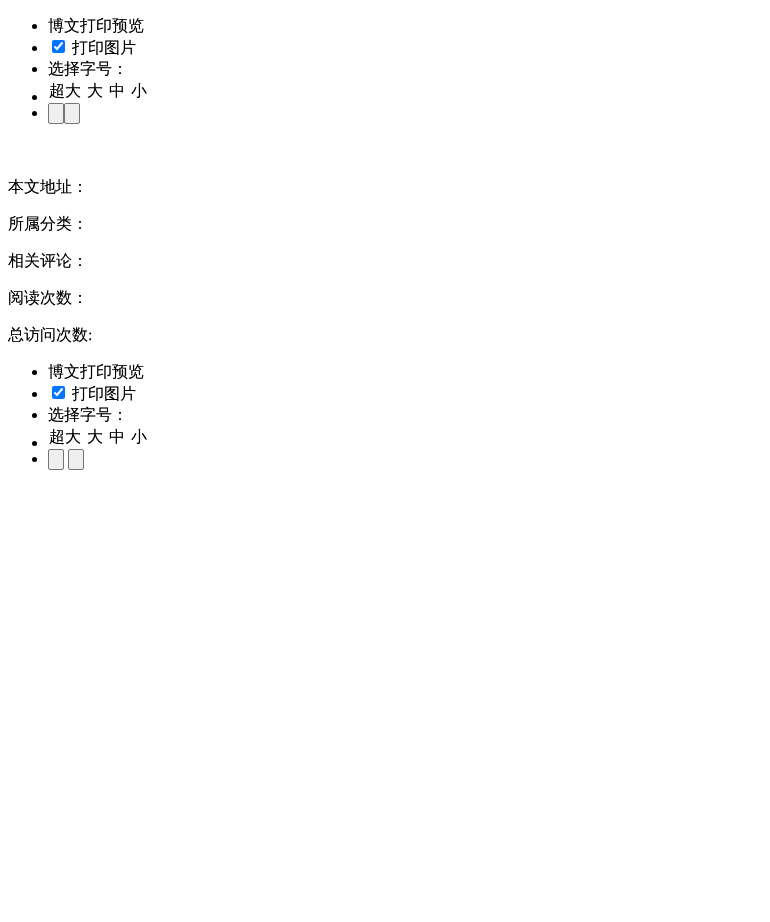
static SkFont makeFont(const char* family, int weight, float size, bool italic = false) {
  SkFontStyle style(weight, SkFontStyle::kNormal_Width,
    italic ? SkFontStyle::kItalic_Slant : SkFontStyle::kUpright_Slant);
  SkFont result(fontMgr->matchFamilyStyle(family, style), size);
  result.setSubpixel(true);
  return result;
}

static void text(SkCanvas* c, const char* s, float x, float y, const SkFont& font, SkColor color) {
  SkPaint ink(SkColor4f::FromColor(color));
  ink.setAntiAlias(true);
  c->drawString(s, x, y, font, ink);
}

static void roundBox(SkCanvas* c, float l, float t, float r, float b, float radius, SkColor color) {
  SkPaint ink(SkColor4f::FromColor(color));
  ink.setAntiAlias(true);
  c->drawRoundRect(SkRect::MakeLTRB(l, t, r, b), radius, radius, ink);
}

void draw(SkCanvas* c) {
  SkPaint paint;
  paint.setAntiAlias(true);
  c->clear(0xffffffff);
  paint.setColor(0xff000000);
  c->drawCircle(34.5f, 26.5f, 2.5f, paint);
  SkFont face1 = makeFont("WenQuanYi Zen Hei", 500, 16);
  text(c, "博文打印预览", 48, 31, face1, 0xff000000);
  c->drawCircle(34.5f, 48.5f, 2.5f, paint);
  roundBox(c, 52, 40, 65, 53, 2, 0xff0075ff);
  paint.setStyle(SkPaint::kStroke_Style);
  paint.setStrokeWidth(2.1f);
  paint.setColor(0xffffffff);
  c->drawPath(SkPathBuilder().moveTo(54.5f, 46.5f).lineTo(57, 49).lineTo(62.5f, 42.5f).detach(), paint);
  text(c, "打印图片", 72, 53, face1, 0xff000000);
  paint.setStyle(SkPaint::kFill_Style);
  paint.setColor(0xff000000);
  c->drawCircle(34.5f, 69.5f, 2.5f, paint);
  text(c, "选择字号：", 48, 74, face1, 0xff000000);
  c->drawCircle(34.5f, 97.5f, 2.5f, paint);
  text(c, "超大", 49, 96, face1, 0xff000000);
  text(c, "大", 87, 96, face1, 0xff000000);
  text(c, "中", 109, 96, face1, 0xff000000);
  text(c, "小", 131, 96, face1, 0xff000000);
  c->drawCircle(34.5f, 113.5f, 2.5f, paint);
  paint.setColor(0xffefefef);
  c->drawRoundRect(SkRect::MakeLTRB(48.5f, 103.5f, 63.5f, 123.5f), 1.5f, 1.5f, paint);
  paint.setStyle(SkPaint::kStroke_Style);
  paint.setStrokeWidth(1);
  paint.setColor(0xff767676);
  c->drawRoundRect(SkRect::MakeLTRB(48.5f, 103.5f, 63.5f, 123.5f), 1.5f, 1.5f, paint);
  paint.setStyle(SkPaint::kFill_Style);
  paint.setColor(0xffefefef);
  c->drawRoundRect(SkRect::MakeLTRB(64.5f, 103.5f, 79.5f, 123.5f), 1.5f, 1.5f, paint);
  paint.setStyle(SkPaint::kStroke_Style);
  paint.setColor(0xff767676);
  c->drawRoundRect(SkRect::MakeLTRB(64.5f, 103.5f, 79.5f, 123.5f), 1.5f, 1.5f, paint);
  text(c, "本文地址：", 8, 192, face1, 0xff000000);
  text(c, "所属分类：", 8, 229, face1, 0xff000000);
  text(c, "相关评论：", 8, 266, face1, 0xff000000);
  text(c, "阅读次数：", 8, 303, face1, 0xff000000);
  text(c, "总访问次数", 8, 340, face1, 0xff000000);
  SkFont face2 = makeFont("Liberation Serif", 400, 16);
  text(c, ":", 88, 340, face2, 0xff000000);
  paint.setStyle(SkPaint::kFill_Style);
  paint.setColor(0xff000000);
  c->drawCircle(34.5f, 372.5f, 2.5f, paint);
  text(c, "博文打印预览", 48, 377, face1, 0xff000000);
  c->drawCircle(34.5f, 394.5f, 2.5f, paint);
  roundBox(c, 52, 386, 65, 399, 2, 0xff0075ff);
  paint.setStyle(SkPaint::kStroke_Style);
  paint.setStrokeWidth(2.1f);
  paint.setColor(0xffffffff);
  c->drawPath(SkPathBuilder().moveTo(54.5f, 392.5f).lineTo(57, 395).lineTo(62.5f, 388.5f).detach(), paint);
  text(c, "打印图片", 72, 399, face1, 0xff000000);
  paint.setStyle(SkPaint::kFill_Style);
  paint.setColor(0xff000000);
  c->drawCircle(34.5f, 415.5f, 2.5f, paint);
  text(c, "选择字号：", 48, 420, face1, 0xff000000);
  c->drawCircle(34.5f, 443.5f, 2.5f, paint);
  text(c, "超大", 49, 442, face1, 0xff000000);
  text(c, "大", 87, 442, face1, 0xff000000);
  text(c, "中", 109, 442, face1, 0xff000000);
  text(c, "小", 131, 442, face1, 0xff000000);
  c->drawCircle(34.5f, 459.5f, 2.5f, paint);
  paint.setColor(0xffefefef);
  c->drawRoundRect(SkRect::MakeLTRB(48.5f, 449.5f, 63.5f, 469.5f), 1.5f, 1.5f, paint);
  paint.setStyle(SkPaint::kStroke_Style);
  paint.setStrokeWidth(1);
  paint.setColor(0xff767676);
  c->drawRoundRect(SkRect::MakeLTRB(48.5f, 449.5f, 63.5f, 469.5f), 1.5f, 1.5f, paint);
  paint.setStyle(SkPaint::kFill_Style);
  paint.setColor(0xffefefef);
  c->drawRoundRect(SkRect::MakeLTRB(68.5f, 449.5f, 83.5f, 469.5f), 1.5f, 1.5f, paint);
  paint.setStyle(SkPaint::kStroke_Style);
  paint.setColor(0xff767676);
  c->drawRoundRect(SkRect::MakeLTRB(68.5f, 449.5f, 83.5f, 469.5f), 1.5f, 1.5f, paint);
}
